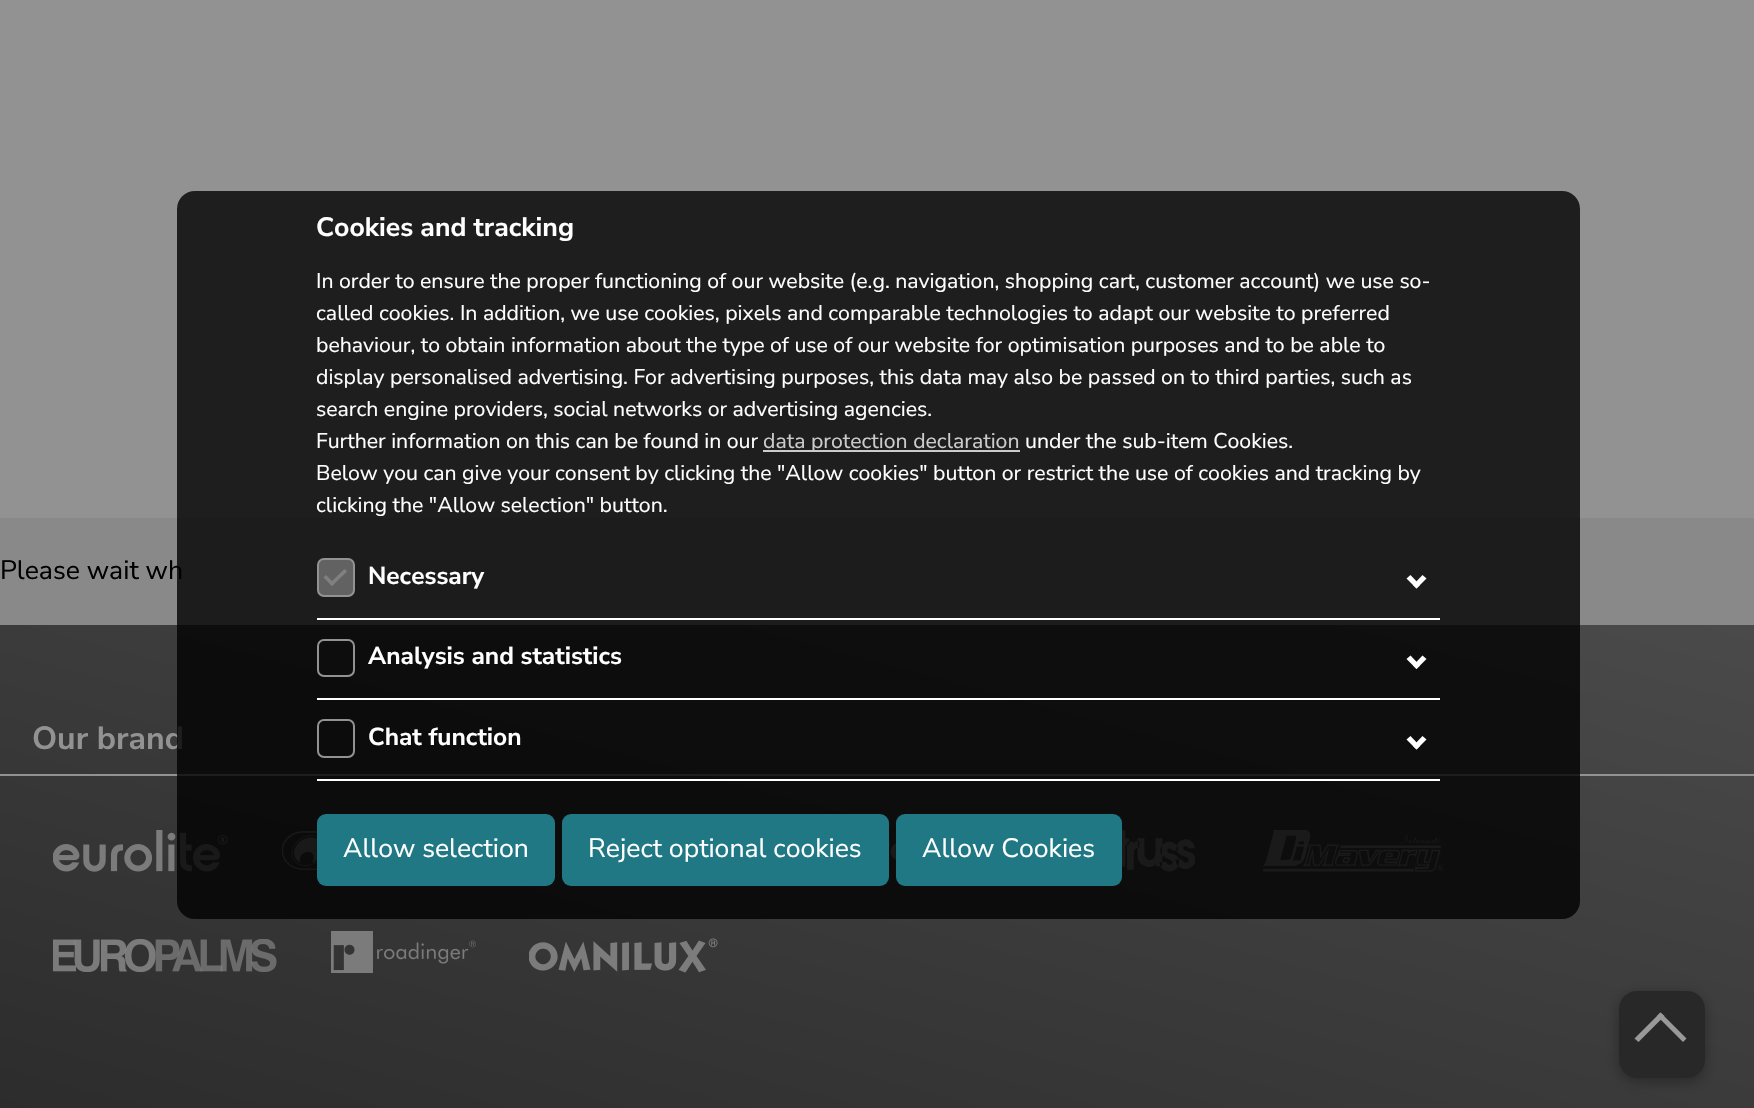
static SkFont makeFont(const char* family, int weight, float size, bool italic = false) {
  SkFontStyle style(weight, SkFontStyle::kNormal_Width,
    italic ? SkFontStyle::kItalic_Slant : SkFontStyle::kUpright_Slant);
  SkFont result(fontMgr->matchFamilyStyle(family, style), size);
  result.setSubpixel(true);
  return result;
}

static void text(SkCanvas* c, const char* s, float x, float y, const SkFont& font, SkColor color) {
  SkPaint ink(SkColor4f::FromColor(color));
  ink.setAntiAlias(true);
  c->drawString(s, x, y, font, ink);
}

static void box(SkCanvas* c, float l, float t, float r, float b, SkColor color) {
  SkPaint ink(SkColor4f::FromColor(color));
  ink.setAntiAlias(true);
  c->drawRect(SkRect::MakeLTRB(l, t, r, b), ink);
}

static void roundBox(SkCanvas* c, float l, float t, float r, float b, float radius, SkColor color) {
  SkPaint ink(SkColor4f::FromColor(color));
  ink.setAntiAlias(true);
  c->drawRoundRect(SkRect::MakeLTRB(l, t, r, b), radius, radius, ink);
}

static void picture(SkCanvas* c, const char* path, float l, float t, float r, float b) {
  auto image = SkImages::DeferredFromEncodedData(SkData::MakeFromFileName(path));
  c->drawImageRect(image, SkRect::MakeLTRB(l, t, r, b), SkSamplingOptions());
}

void draw(SkCanvas* c) {
  SkPaint paint;
  paint.setAntiAlias(true);
  c->clear(0xff929292);
  box(c, 0, 518, 1754, 625, 0xff898989);
  SkFont face1 = makeFont("Nunito Sans", 400, 26.6f);
  text(c, "Please wait wh", 0, 579, face1, 0xff000000);
  {
    const SkColor colors[] = {0xff2c2c2c, 0xff4a4a4a};
    const float stops[] = {0, 1};
    const SkPoint ends[] = {{758, 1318}, {998, 422}};
    paint.setShader(SkGradientShader::MakeLinear(ends, colors, stops, 2, SkTileMode::kClamp));
    paint.setAlpha(255);
  }
  c->drawRect(SkRect::MakeLTRB(0, 625, 1754, 1108), paint);
  box(c, 0, 774, 1754, 776, 0xff929292);
  SkFont face2 = makeFont("Nunito Sans", 700, 32);
  text(c, "Our brand", 32, 749, face2, 0xff929292);
  picture(c, "img_01.png", 53, 830, 228, 872);
  picture(c, "img_02.png", 282, 831, 317, 870);
  picture(c, "img_03.png", 889, 842, 896, 860);
  picture(c, "img_04.png", 1122, 830, 1195, 872);
  picture(c, "img_05.png", 1263, 830, 1444, 872);
  roundBox(c, 177, 191, 1580, 919, 18, 0xcc000000);
  SkFont face3 = makeFont("Nunito Sans", 700, 26.6f);
  text(c, "Cookies and tracking", 316, 236, face3, 0xffffffff);
  SkFont face4 = makeFont("Nunito Sans", 400, 21.28f);
  text(c, "In order to ensure the proper functioning of our website (e.g. navigation, shopping cart, customer account) we use so-", 316, 288, face4, 0xffffffff);
  text(c, "called cookies. In addition, we use cookies, pixels and comparable technologies to adapt our website to preferred", 316, 320, face4, 0xffffffff);
  text(c, "behaviour, to obtain information about the type of use of our website for optimisation purposes and to be able to", 316, 352, face4, 0xffffffff);
  text(c, "display personalised advertising. For advertising purposes, this data may also be passed on to third parties, such as", 316, 384, face4, 0xffffffff);
  text(c, "search engine providers, social networks or advertising agencies.", 316, 416, face4, 0xffffffff);
  text(c, "Further information on this can be found in our", 316, 448, face4, 0xffffffff);
  box(c, 763, 450, 1020, 452, 0xffcccccc);
  text(c, "data protection declaration", 763, 448, face4, 0xffcccccc);
  text(c, "under the sub-item Cookies.", 1025, 448, face4, 0xffffffff);
  text(c, "Below you can give your consent by clicking the \"Allow cookies\" button or restrict the use of cookies and tracking by", 316, 480, face4, 0xffffffff);
  text(c, "clicking the \"Allow selection\" button.", 316, 512, face4, 0xffffffff);
  box(c, 317, 618, 1440, 620, 0xffffffff);
  paint.setShader(nullptr);
  paint.setColor(0xff626262);
  c->drawRoundRect(SkRect::MakeLTRB(318, 559, 354, 596), 6, 6, paint);
  paint.setStyle(SkPaint::kStroke_Style);
  paint.setStrokeWidth(2);
  paint.setColor(0xff929292);
  c->drawRoundRect(SkRect::MakeLTRB(318, 559, 354, 596), 6, 6, paint);
  SkFont face5 = makeFont("Nunito Sans", 700, 24.5f);
  text(c, "Necessary", 368, 584, face5, 0xffffffff);
  paint.setStyle(SkPaint::kFill_Style);
  paint.setColor(0xff808080);
  c->drawPath(SkPathBuilder().moveTo(329.5f, 583.5f).lineTo(344.5f, 569).lineTo(347, 571.5f).lineTo(332, 586).close().detach(), paint);
  c->drawPath(SkPathBuilder().moveTo(323.5f, 577.5f).lineTo(326, 575).lineTo(334.5f, 583.5f).lineTo(332, 586).close().detach(), paint);
  paint.setColor(0xffffffff);
  c->drawPath(SkPathBuilder().moveTo(1413, 585).lineTo(1422.5f, 575).lineTo(1426.5f, 578.5f).lineTo(1416.5f, 588.5f).close().detach(), paint);
  c->drawPath(SkPathBuilder().moveTo(1406.5f, 578.5f).lineTo(1410.5f, 575).lineTo(1420, 585).lineTo(1416.5f, 588.5f).close().detach(), paint);
  box(c, 317, 698, 1440, 700, 0xffffffff);
  paint.setStyle(SkPaint::kStroke_Style);
  paint.setColor(0xff929292);
  c->drawRoundRect(SkRect::MakeLTRB(318, 640, 354, 676), 6, 6, paint);
  text(c, "Analysis and statistics", 368, 664, face5, 0xffffffff);
  paint.setStyle(SkPaint::kFill_Style);
  paint.setColor(0xffffffff);
  c->drawPath(SkPathBuilder().moveTo(1413, 665.5f).lineTo(1422.5f, 655.5f).lineTo(1426.5f, 659).lineTo(1416.5f, 669).close().detach(), paint);
  c->drawPath(SkPathBuilder().moveTo(1406.5f, 659).lineTo(1410.5f, 655.5f).lineTo(1420, 665.5f).lineTo(1416.5f, 669).close().detach(), paint);
  box(c, 317, 779, 1440, 781, 0xffffffff);
  paint.setStyle(SkPaint::kStroke_Style);
  paint.setColor(0xff929292);
  c->drawRoundRect(SkRect::MakeLTRB(318, 720, 354, 757), 6, 6, paint);
  text(c, "Chat function", 368, 745, face5, 0xffffffff);
  paint.setStyle(SkPaint::kFill_Style);
  paint.setColor(0xffffffff);
  c->drawPath(SkPathBuilder().moveTo(1413, 746).lineTo(1422.5f, 736).lineTo(1426.5f, 739.5f).lineTo(1416.5f, 749.5f).close().detach(), paint);
  c->drawPath(SkPathBuilder().moveTo(1406.5f, 739.5f).lineTo(1410.5f, 736).lineTo(1420, 746).lineTo(1416.5f, 749.5f).close().detach(), paint);
  roundBox(c, 317, 814, 555, 886, 9, 0xff1f7883);
  text(c, "Allow selection", 343, 857, face1, 0xffffffff);
  roundBox(c, 562, 814, 889, 886, 9, 0xff1f7883);
  text(c, "Reject optional cookies", 588, 857, face1, 0xffffffff);
  roundBox(c, 896, 814, 1122, 886, 9, 0xff1f7883);
  text(c, "Allow Cookies", 922, 857, face1, 0xffffffff);
  picture(c, "img_06.png", 53, 939, 277, 972);
  picture(c, "img_07.png", 331, 931, 476, 973);
  picture(c, "img_08.png", 529, 938, 718, 973);
  paint.setColor(0x4d000000);
  paint.setMaskFilter(SkMaskFilter::MakeBlur(kNormal_SkBlurStyle, 7));
  c->drawRoundRect(SkRect::MakeLTRB(1619, 994, 1705, 1082), 18, 18, paint);
  paint.setMaskFilter(nullptr);
  roundBox(c, 1619, 991, 1705, 1078, 18, 0xff282828);
  paint.setColor(0xff999999);
  c->drawPath(SkPathBuilder().moveTo(1664.5f, 1016).lineTo(1638.5f, 1042).lineTo(1634.5f, 1038.5f).lineTo(1660.5f, 1012.5f).close().detach(), paint);
  c->drawPath(SkPathBuilder().moveTo(1686.5f, 1038.5f).lineTo(1683, 1042).lineTo(1657, 1016).lineTo(1660.5f, 1012.5f).close().detach(), paint);
}
